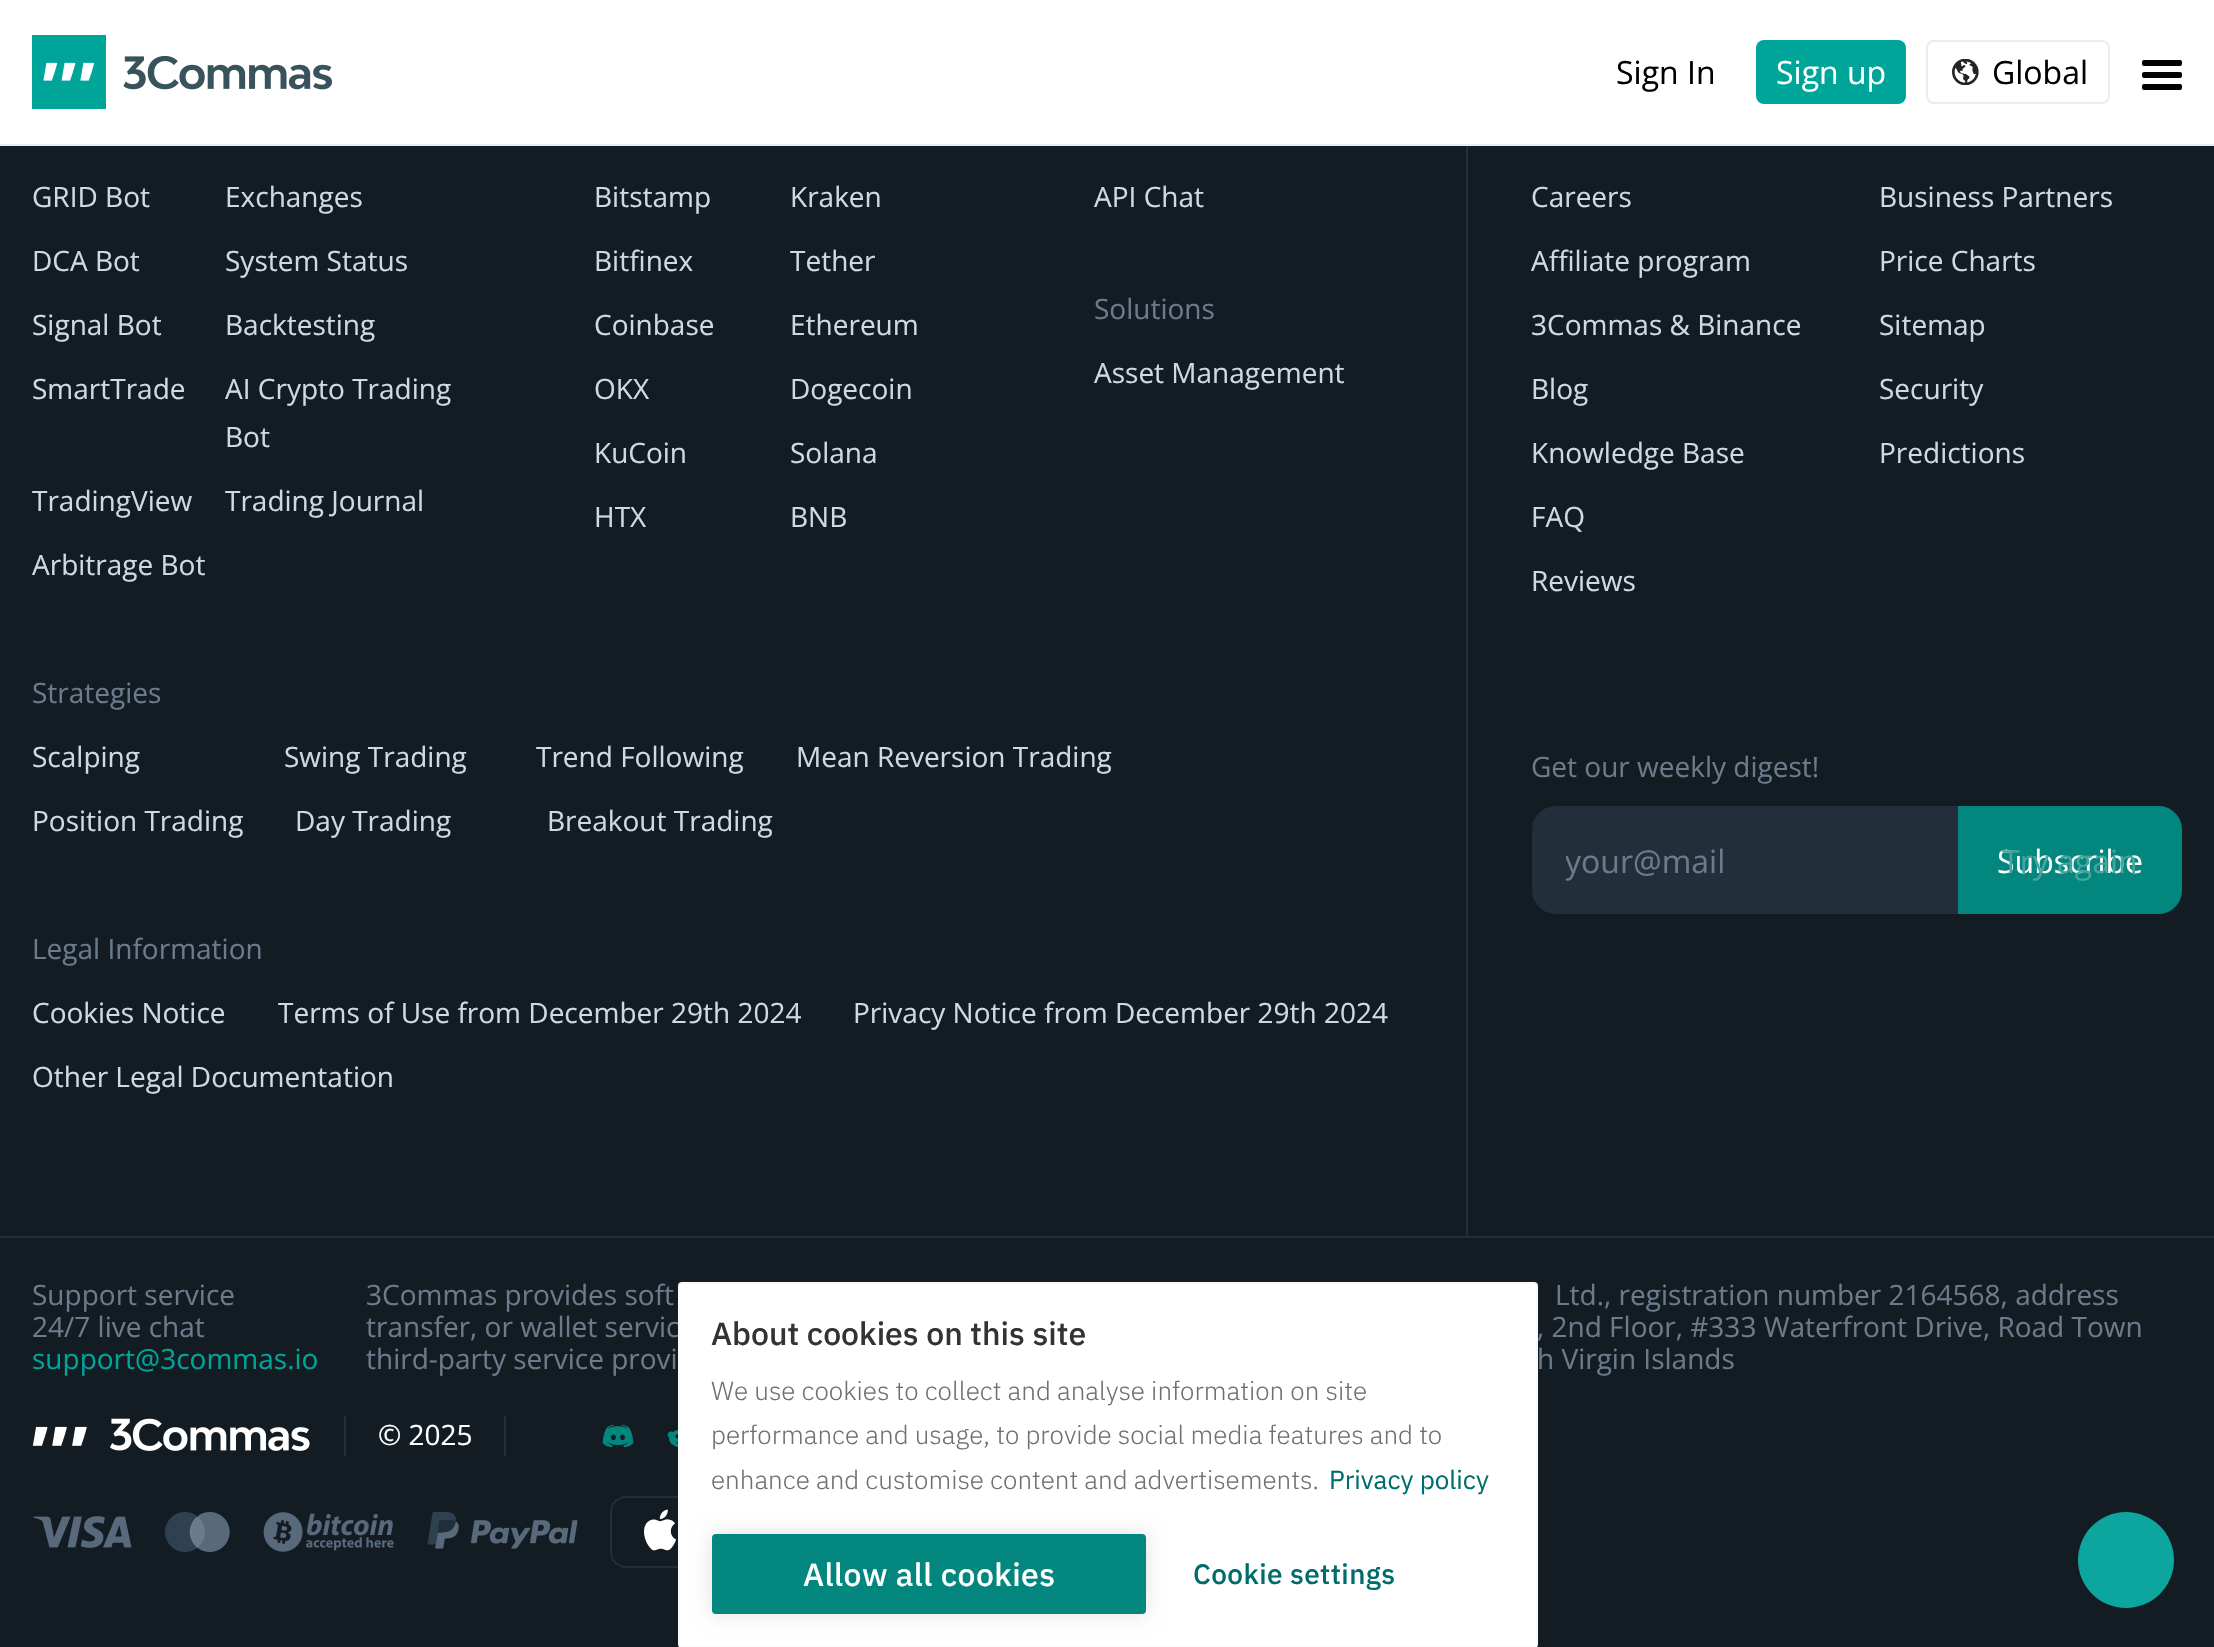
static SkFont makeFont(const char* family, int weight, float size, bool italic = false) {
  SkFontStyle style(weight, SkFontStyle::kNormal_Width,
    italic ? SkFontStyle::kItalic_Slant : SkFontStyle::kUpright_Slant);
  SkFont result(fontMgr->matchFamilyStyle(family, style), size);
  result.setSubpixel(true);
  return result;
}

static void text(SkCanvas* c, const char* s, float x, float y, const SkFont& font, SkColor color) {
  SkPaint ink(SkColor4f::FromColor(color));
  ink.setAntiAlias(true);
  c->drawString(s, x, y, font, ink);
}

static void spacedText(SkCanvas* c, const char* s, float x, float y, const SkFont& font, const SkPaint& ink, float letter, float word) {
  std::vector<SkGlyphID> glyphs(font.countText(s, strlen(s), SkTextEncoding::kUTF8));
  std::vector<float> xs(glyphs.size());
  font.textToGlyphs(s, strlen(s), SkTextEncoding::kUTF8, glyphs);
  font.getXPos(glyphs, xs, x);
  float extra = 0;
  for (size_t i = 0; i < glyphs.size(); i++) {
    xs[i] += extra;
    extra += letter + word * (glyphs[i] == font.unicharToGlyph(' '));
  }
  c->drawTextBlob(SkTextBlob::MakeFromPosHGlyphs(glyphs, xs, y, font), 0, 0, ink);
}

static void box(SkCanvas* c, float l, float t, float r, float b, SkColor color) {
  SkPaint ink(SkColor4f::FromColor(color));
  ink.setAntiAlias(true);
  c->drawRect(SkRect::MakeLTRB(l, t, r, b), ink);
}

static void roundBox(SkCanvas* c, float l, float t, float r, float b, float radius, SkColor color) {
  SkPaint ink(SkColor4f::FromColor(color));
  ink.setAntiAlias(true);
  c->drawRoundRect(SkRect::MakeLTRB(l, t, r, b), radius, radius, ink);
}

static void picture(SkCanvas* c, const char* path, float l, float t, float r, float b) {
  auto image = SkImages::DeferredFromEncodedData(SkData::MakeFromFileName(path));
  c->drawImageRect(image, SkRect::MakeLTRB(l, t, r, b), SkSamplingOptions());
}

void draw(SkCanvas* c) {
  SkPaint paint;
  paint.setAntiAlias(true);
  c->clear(0xff141c23);
  box(c, 0, 0, 2214, 144, 0xffffffff);
  box(c, 0, 144, 2214, 146, 0xffe8edf2);
  picture(c, "img_01.png", 32, 35, 332, 109);
  SkFont face1 = makeFont("Open Sans", 400, 32);
  text(c, "Sign In", 1616, 84, face1, 0xff000000);
  roundBox(c, 1756, 40, 1906, 104, 8, 0xff00a59a);
  text(c, "Sign up", 1776, 84, face1, 0xffffffff);
  paint.setStyle(SkPaint::kStroke_Style);
  paint.setStrokeWidth(2);
  paint.setColor(0xffe8edf2);
  c->drawRoundRect(SkRect::MakeLTRB(1927, 41, 2109, 103), 7, 7, paint);
  picture(c, "img_02.png", 1952, 59, 1979, 85);
  text(c, "Global", 1992, 84, face1, 0xff000000);
  roundBox(c, 2142, 60, 2182, 66, 2, 0xff000000);
  roundBox(c, 2142, 72, 2182, 78, 2, 0xff000000);
  roundBox(c, 2142, 84, 2182, 90, 2, 0xff000000);
  SkFont face2 = makeFont("Open Sans", 400, 28);
  text(c, "GRID Bot", 32, 207, face2, 0xffcfdae0);
  text(c, "Exchanges", 225, 207, face2, 0xffcfdae0);
  text(c, "DCA Bot", 32, 271, face2, 0xffcfdae0);
  text(c, "System Status", 225, 271, face2, 0xffcfdae0);
  text(c, "Signal Bot", 32, 335, face2, 0xffcfdae0);
  text(c, "Backtesting", 225, 335, face2, 0xffcfdae0);
  text(c, "SmartTrade", 32, 399, face2, 0xffcfdae0);
  text(c, "AI Crypto Trading", 225, 399, face2, 0xffcfdae0);
  text(c, "Bot", 225, 447, face2, 0xffcfdae0);
  text(c, "TradingView", 32, 511, face2, 0xffcfdae0);
  text(c, "Trading Journal", 225, 511, face2, 0xffcfdae0);
  text(c, "Arbitrage Bot", 32, 575, face2, 0xffcfdae0);
  text(c, "Bitstamp", 594, 207, face2, 0xffcfdae0);
  text(c, "Kraken", 790, 207, face2, 0xffcfdae0);
  text(c, "Bitfinex", 594, 271, face2, 0xffcfdae0);
  text(c, "Tether", 790, 271, face2, 0xffcfdae0);
  text(c, "Coinbase", 594, 335, face2, 0xffcfdae0);
  text(c, "Ethereum", 790, 335, face2, 0xffcfdae0);
  text(c, "OKX", 594, 399, face2, 0xffcfdae0);
  text(c, "Dogecoin", 790, 399, face2, 0xffcfdae0);
  text(c, "KuCoin", 594, 463, face2, 0xffcfdae0);
  text(c, "Solana", 790, 463, face2, 0xffcfdae0);
  text(c, "HTX", 594, 527, face2, 0xffcfdae0);
  text(c, "BNB", 790, 527, face2, 0xffcfdae0);
  text(c, "API Chat", 1094, 207, face2, 0xffcfdae0);
  text(c, "Solutions", 1094, 319, face2, 0xff6b7b8b);
  text(c, "Asset Management", 1094, 383, face2, 0xffcfdae0);
  text(c, "Strategies", 32, 703, face2, 0xff6b7b8b);
  text(c, "Scalping", 32, 767, face2, 0xffcfdae0);
  text(c, "Swing Trading", 284, 767, face2, 0xffcfdae0);
  text(c, "Trend Following", 536, 767, face2, 0xffcfdae0);
  text(c, "Mean Reversion Trading", 796, 767, face2, 0xffcfdae0);
  text(c, "Position Trading", 32, 831, face2, 0xffcfdae0);
  text(c, "Day Trading", 295, 831, face2, 0xffcfdae0);
  text(c, "Breakout Trading", 547, 831, face2, 0xffcfdae0);
  text(c, "Legal Information", 32, 959, face2, 0xff6b7b8b);
  text(c, "Cookies Notice", 32, 1023, face2, 0xffcfdae0);
  text(c, "Terms of Use from December 29th 2024", 278, 1023, face2, 0xffcfdae0);
  text(c, "Privacy Notice from December 29th 2024", 853, 1023, face2, 0xffcfdae0);
  text(c, "Other Legal Documentation", 32, 1087, face2, 0xffcfdae0);
  box(c, 1466, 146, 1468, 1236, 0xff222e3a);
  text(c, "Careers", 1531, 207, face2, 0xffcfdae0);
  text(c, "Affiliate program", 1531, 271, face2, 0xffcfdae0);
  text(c, "3Commas & Binance", 1531, 335, face2, 0xffcfdae0);
  text(c, "Blog", 1531, 399, face2, 0xffcfdae0);
  text(c, "Knowledge Base", 1531, 463, face2, 0xffcfdae0);
  text(c, "FAQ", 1531, 527, face2, 0xffcfdae0);
  text(c, "Reviews", 1531, 591, face2, 0xffcfdae0);
  text(c, "Business Partners", 1879, 207, face2, 0xffcfdae0);
  text(c, "Price Charts", 1879, 271, face2, 0xffcfdae0);
  text(c, "Sitemap", 1879, 335, face2, 0xffcfdae0);
  text(c, "Security", 1879, 399, face2, 0xffcfdae0);
  text(c, "Predictions", 1879, 463, face2, 0xffcfdae0);
  text(c, "Get our weekly digest!", 1531, 777, face2, 0xff6b7b8b);
  roundBox(c, 1532, 806, 2182, 914, 24, 0xff222e3a);
  c->save();
  c->clipRect(SkRect::MakeLTRB(1566, 838, 1924, 882));
  text(c, "your@mail", 1565, 873, face1, 0xff6b7b8b);
  c->restore();
  paint.setStyle(SkPaint::kFill_Style);
  paint.setColor(0xff02867d);
  c->drawPath(SkPathBuilder().moveTo(1958, 806).lineTo(2158, 806).cubicTo(2171.5f, 806, 2182, 816.5f, 2182, 830).lineTo(2182, 890).cubicTo(2182, 903.5f, 2171.5f, 914, 2158, 914).lineTo(1958, 914).close().detach(), paint);
  text(c, "Subscribe", 1997, 873, face1, 0xffffffff);
  text(c, "Try again", 2002, 873, face1, 0xff45a69f);
  box(c, 0, 1236, 2214, 1238, 0xff222e3a);
  text(c, "Support service", 32, 1305, face2, 0xff6b7b8b);
  text(c, "24/7 live chat", 32, 1337, face2, 0xff6b7b8b);
  text(c, "support@3commas.io", 32, 1369, face2, 0xff00a59a);
  text(c, "3Commas provides soft", 366, 1305, face2, 0xff6b7b8b);
  text(c, "transfer, or wallet servic", 366, 1337, face2, 0xff6b7b8b);
  text(c, "third-party service provi", 366, 1369, face2, 0xff6b7b8b);
  text(c, "Ltd., registration number 2164568, address", 1555, 1305, face2, 0xff6b7b8b);
  text(c, ", 2nd Floor, #333 Waterfront Drive, Road Town", 1537, 1337, face2, 0xff6b7b8b);
  text(c, "h Virgin Islands", 1537, 1369, face2, 0xff6b7b8b);
  picture(c, "img_03.png", 32, 1418, 310, 1451);
  box(c, 504, 1416, 506, 1456, 0xff222e3a);
  box(c, 344, 1416, 346, 1456, 0xff222e3a);
  text(c, "© 2025", 378, 1445, face2, 0xffffffff);
  picture(c, "img_04.png", 602, 1424, 634, 1448);
  picture(c, "img_05.png", 667, 1430, 678, 1447);
  picture(c, "img_06.png", 33, 1516, 132, 1548);
  picture(c, "img_07.png", 165, 1512, 230, 1552);
  picture(c, "img_08.png", 263, 1512, 394, 1552);
  picture(c, "img_09.png", 427, 1512, 578, 1549);
  paint.setStyle(SkPaint::kStroke_Style);
  paint.setColor(0xff222e3a);
  c->drawRoundRect(SkRect::MakeLTRB(611, 1497, 857, 1567), 15, 15, paint);
  picture(c, "img_10.png", 644, 1509, 676, 1551);
  paint.setStyle(SkPaint::kFill_Style);
  paint.setColor(0xff0da69e);
  c->drawCircle(2126, 1560, 48, paint);
  paint.setColor(0xffffffff);
  c->drawRoundRect(SkRect::MakeLTRB(679, 1283, 1537, 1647), 3, 3, paint);
  paint.setStyle(SkPaint::kStroke_Style);
  paint.setColor(0xfffafafa);
  c->drawRoundRect(SkRect::MakeLTRB(679, 1283, 1537, 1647), 3, 3, paint);
  SkFont face3 = makeFont("IBM Plex Sans", 500, 32);
  text(c, "About cookies on this site", 711, 1345, face3, 0xff333333);
  SkFont face4 = makeFont("IBM Plex Sans", 300, 26);
  text(c, "We use cookies to collect and analyse information on site", 711, 1400, face4, 0xff707070);
  text(c, "performance and usage, to provide social media features and to", 711, 1444, face4, 0xff707070);
  text(c, "enhance and customise content and advertisements.", 711, 1489, face4, 0xff707070);
  SkFont face5 = makeFont("IBM Plex Sans", 400, 26);
  text(c, "Privacy policy", 1329, 1489, face5, 0xff006d6d);
  paint.setStyle(SkPaint::kFill_Style);
  paint.setColor(0x1f000000);
  paint.setMaskFilter(SkMaskFilter::MakeBlur(kNormal_SkBlurStyle, 10));
  c->drawRoundRect(SkRect::MakeLTRB(712, 1534, 1146, 1614), 4, 4, paint);
  paint.setMaskFilter(nullptr);
  roundBox(c, 712, 1534, 1146, 1614, 4, 0xff02867d);
  paint.setColor(0xffffffff);
  spacedText(c, "Allow all cookies", 803, 1586, face3, paint, 0.4f, 0);
  SkFont face6 = makeFont("IBM Plex Sans", 500, 28);
  paint.setColor(0xff006d6d);
  spacedText(c, "Cookie settings", 1193, 1584, face6, paint, 0.4f, 0);
}
